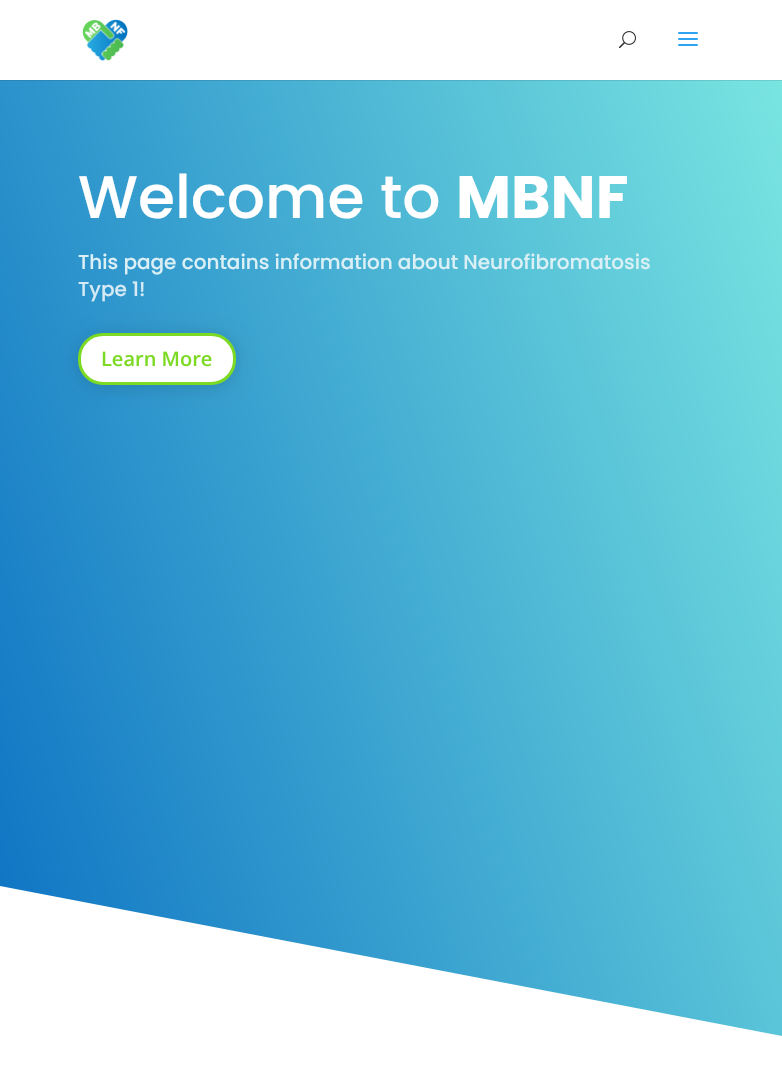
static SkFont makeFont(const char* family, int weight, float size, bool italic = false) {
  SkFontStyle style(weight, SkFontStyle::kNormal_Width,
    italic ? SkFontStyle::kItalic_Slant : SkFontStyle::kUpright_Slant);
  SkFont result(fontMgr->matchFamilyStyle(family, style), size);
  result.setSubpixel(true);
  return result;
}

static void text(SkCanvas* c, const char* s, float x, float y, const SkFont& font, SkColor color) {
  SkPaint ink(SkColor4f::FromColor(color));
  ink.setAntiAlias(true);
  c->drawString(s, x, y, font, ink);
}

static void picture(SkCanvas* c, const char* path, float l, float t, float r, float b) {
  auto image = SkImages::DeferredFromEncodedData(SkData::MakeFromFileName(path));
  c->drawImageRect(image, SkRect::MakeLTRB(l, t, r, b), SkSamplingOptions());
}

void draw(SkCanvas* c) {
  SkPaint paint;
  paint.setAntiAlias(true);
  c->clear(0xffffffff);
  picture(c, "img_01.png", 82, 19, 129, 62);
  picture(c, "img_02.png", 619, 31, 636, 49);
  picture(c, "img_03.png", 678, 32, 698, 46);
  {
    const SkColor colors[] = {0xff0c71c3, 0xff79e5e1};
    const float stops[] = {0, 1};
    const SkPoint ends[] = {{-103, 718}, {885, 397}};
    paint.setShader(SkGradientShader::MakeLinear(ends, colors, stops, 2, SkTileMode::kClamp));
    paint.setAlpha(255);
  }
  c->drawRect(SkRect::MakeLTRB(0, 81, 782, 1036), paint);
  {
    const SkColor colors[] = {0xff0b66b0, 0xff6dcecb};
    const float stops[] = {0, 1};
    const SkPoint ends[] = {{-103, 718}, {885, 397}};
    paint.setShader(SkGradientShader::MakeLinear(ends, colors, stops, 2, SkTileMode::kClamp));
    paint.setAlpha(255);
  }
  c->drawRect(SkRect::MakeLTRB(0, 80, 782, 81), paint);
  SkFont face1 = makeFont("Poppins", 500, 60);
  text(c, "Welcome to", 78, 218, face1, 0xffffffff);
  SkFont face2 = makeFont("Poppins", 700, 60);
  text(c, "MBNF", 456, 218, face2, 0xffffffff);
  SkFont face3 = makeFont("Poppins", 500, 20);
  text(c, "This page contains information about Neurofibromatosis", 78, 269, face3, 0xffdbf0f6);
  text(c, "Type 1!", 78, 296, face3, 0xffd5eaf5);
  paint.setShader(nullptr);
  paint.setColor(0x26000000);
  paint.setMaskFilter(SkMaskFilter::MakeBlur(kNormal_SkBlurStyle, 9));
  c->drawRoundRect(SkRect::MakeLTRB(78, 335, 236, 387), 25, 25, paint);
  paint.setMaskFilter(nullptr);
  paint.setColor(0xffffffff);
  c->drawRoundRect(SkRect::MakeLTRB(79.5f, 334.5f, 234.5f, 383.5f), 23.5f, 23.5f, paint);
  paint.setStyle(SkPaint::kStroke_Style);
  paint.setStrokeWidth(3);
  paint.setColor(0xff7cda24);
  c->drawRoundRect(SkRect::MakeLTRB(79.5f, 334.5f, 234.5f, 383.5f), 23.5f, 23.5f, paint);
  SkFont face4 = makeFont("Open Sans", 600, 20);
  text(c, "Learn More", 101, 366, face4, 0xff7cda24);
  paint.setStyle(SkPaint::kFill_Style);
  paint.setColor(0xffffffff);
  c->drawPath(SkPathBuilder().moveTo(0, 886).lineTo(0, 1036).lineTo(782, 1036).close().detach(), paint);
}
